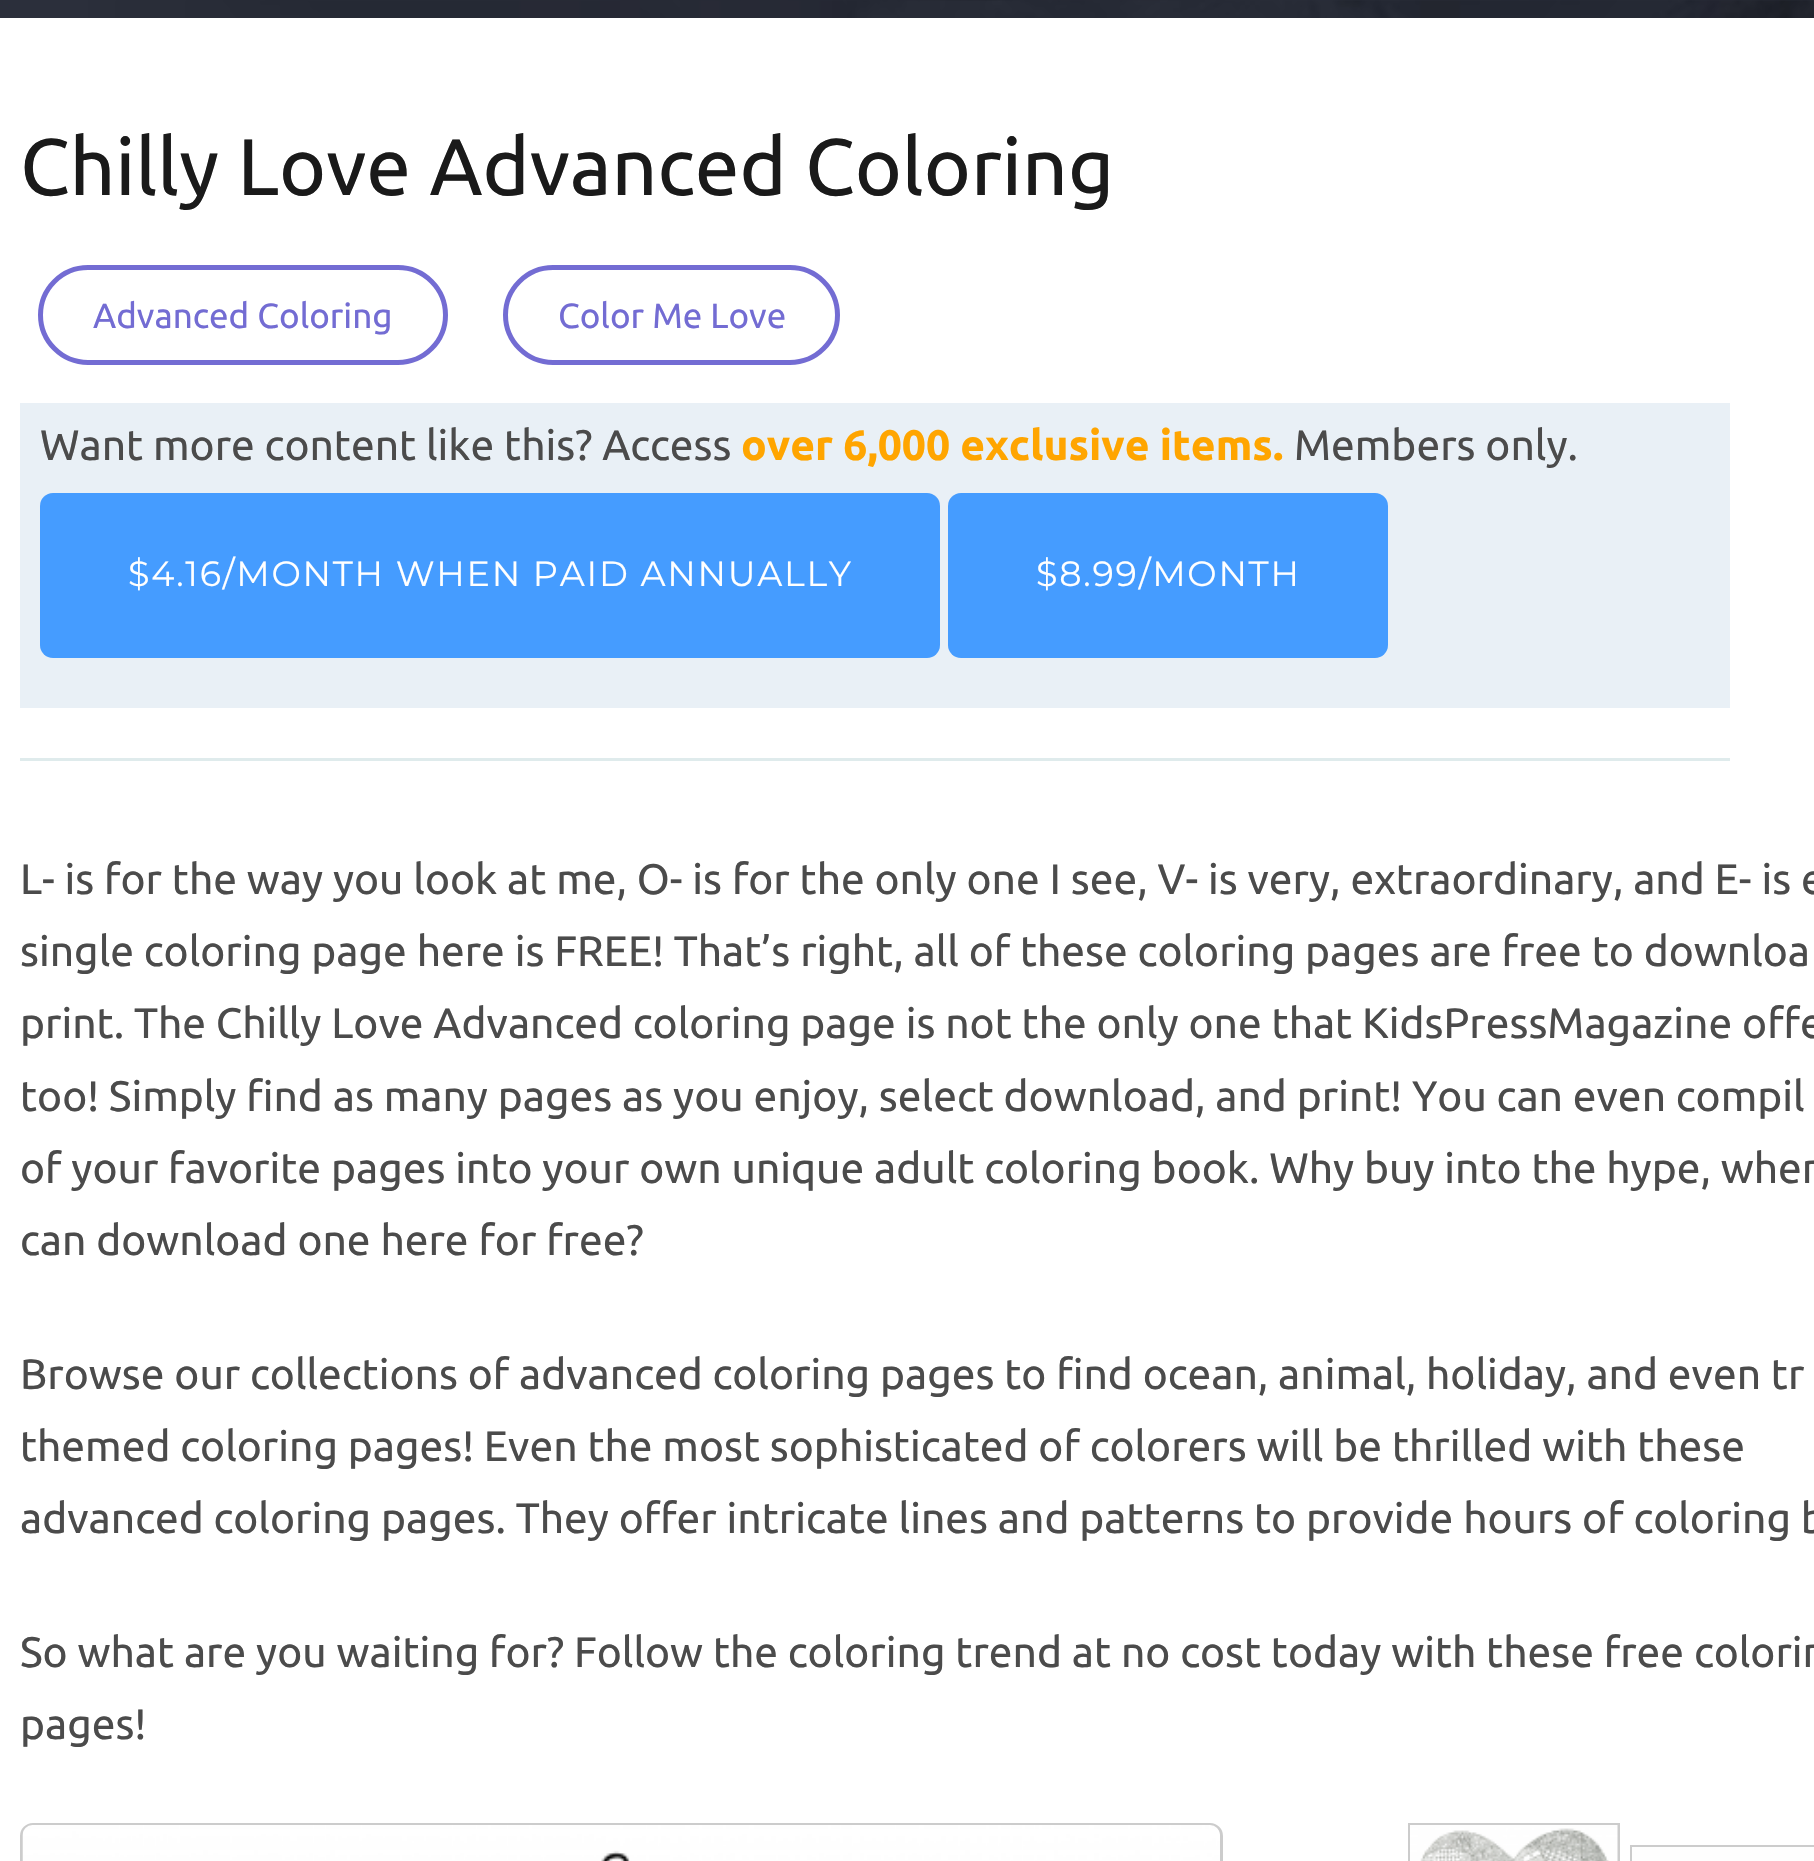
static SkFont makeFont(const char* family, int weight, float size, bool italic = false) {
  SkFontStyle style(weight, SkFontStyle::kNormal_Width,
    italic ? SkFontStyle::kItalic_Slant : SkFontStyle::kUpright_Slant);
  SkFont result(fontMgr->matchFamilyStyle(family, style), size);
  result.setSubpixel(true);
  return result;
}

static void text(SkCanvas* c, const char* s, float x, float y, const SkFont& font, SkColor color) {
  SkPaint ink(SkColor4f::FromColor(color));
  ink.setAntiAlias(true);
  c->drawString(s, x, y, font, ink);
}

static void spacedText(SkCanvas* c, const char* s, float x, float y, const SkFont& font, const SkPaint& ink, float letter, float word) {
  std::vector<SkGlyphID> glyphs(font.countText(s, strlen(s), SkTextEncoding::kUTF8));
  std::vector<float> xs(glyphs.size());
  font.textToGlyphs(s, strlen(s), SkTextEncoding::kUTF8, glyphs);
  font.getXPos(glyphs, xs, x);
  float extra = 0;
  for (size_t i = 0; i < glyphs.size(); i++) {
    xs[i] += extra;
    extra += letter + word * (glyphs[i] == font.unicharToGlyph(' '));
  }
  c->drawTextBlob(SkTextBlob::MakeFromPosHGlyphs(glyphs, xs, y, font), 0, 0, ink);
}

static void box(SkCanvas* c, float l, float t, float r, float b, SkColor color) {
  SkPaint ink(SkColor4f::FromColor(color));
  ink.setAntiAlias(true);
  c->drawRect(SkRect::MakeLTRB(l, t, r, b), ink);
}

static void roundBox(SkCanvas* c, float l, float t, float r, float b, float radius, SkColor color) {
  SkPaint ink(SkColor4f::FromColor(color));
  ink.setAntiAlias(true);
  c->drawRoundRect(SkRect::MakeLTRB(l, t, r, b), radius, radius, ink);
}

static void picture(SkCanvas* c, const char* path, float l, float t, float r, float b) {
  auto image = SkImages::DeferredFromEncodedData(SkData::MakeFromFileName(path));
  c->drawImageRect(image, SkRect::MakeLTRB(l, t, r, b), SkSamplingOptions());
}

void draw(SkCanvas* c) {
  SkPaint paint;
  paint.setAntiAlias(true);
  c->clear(0xff2b2f3b);
  picture(c, "img_01.png", 88, 0, 1814, 18);
  box(c, 0, 18, 1814, 1861, 0xffffffff);
  box(c, 20, 758, 1730, 761, 0xffdfebec);
  SkFont face1 = makeFont("Ubuntu", 400, 80);
  text(c, "Chilly Love Advanced Coloring", 20, 195, face1, 0xff1a1a1a);
  paint.setStyle(SkPaint::kStroke_Style);
  paint.setStrokeWidth(5);
  paint.setColor(0xff736cd3);
  c->drawRoundRect(SkRect::MakeLTRB(40.5f, 267.5f, 445.5f, 362.5f), 47.5f, 47.5f, paint);
  SkFont face2 = makeFont("Ubuntu", 400, 35);
  text(c, "Advanced Coloring", 93, 328, face2, 0xff736cd3);
  c->drawRoundRect(SkRect::MakeLTRB(505.5f, 267.5f, 837.5f, 362.5f), 47.5f, 47.5f, paint);
  text(c, "Color Me Love", 558, 328, face2, 0xff736cd3);
  box(c, 20, 403, 1730, 708, 0xffe9f0f6);
  SkFont face3 = makeFont("Ubuntu", 400, 42.5f);
  text(c, "Want more content like this? Access", 40, 460, face3, 0xff4b4b4b);
  SkFont face4 = makeFont("Ubuntu", 700, 42.5f);
  text(c, "over 6,000 exclusive items.", 741, 460, face4, 0xffffa500);
  text(c, "Members only.", 1294, 460, face3, 0xff4b4b4b);
  roundBox(c, 40, 493, 940, 658, 13, 0xff459cff);
  SkFont face5 = makeFont("Montserrat", 400, 35);
  paint.setStyle(SkPaint::kFill_Style);
  paint.setColor(0xffffffff);
  spacedText(c, "$4.16/MONTH WHEN PAID ANNUALLY", 128, 586, face5, paint, 1.75f, 0);
  roundBox(c, 948, 493, 1388, 658, 13, 0xff459cff);
  spacedText(c, "$8.99/MONTH", 1036, 586, face5, paint, 1.75f, 0);
  text(c, "L- is for the way you look at me, O- is for the only one I see, V- is very, extraordinary, and E- is e", 20, 894, face3, 0xff4b4b4b);
  text(c, "single coloring page here is FREE! That’s right, all of these coloring pages are free to downloa", 20, 966, face3, 0xff4b4b4b);
  text(c, "print. The Chilly Love Advanced coloring page is not the only one that KidsPressMagazine offe", 20, 1038, face3, 0xff4b4b4b);
  text(c, "too! Simply find as many pages as you enjoy, select download, and print! You can even compil", 20, 1111, face3, 0xff4b4b4b);
  text(c, "of your favorite pages into your own unique adult coloring book. Why buy into the hype, when", 20, 1183, face3, 0xff4b4b4b);
  text(c, "can download one here for free?", 20, 1255, face3, 0xff4b4b4b);
  text(c, "Browse our collections of advanced coloring pages to find ocean, animal, holiday, and even tr", 20, 1389, face3, 0xff4b4b4b);
  text(c, "themed coloring pages! Even the most sophisticated of colorers will be thrilled with these", 20, 1461, face3, 0xff4b4b4b);
  text(c, "advanced coloring pages. They offer intricate lines and patterns to provide hours of coloring b", 20, 1533, face3, 0xff4b4b4b);
  text(c, "So what are you waiting for? Follow the coloring trend at no cost today with these free colorin", 20, 1667, face3, 0xff4b4b4b);
  text(c, "pages!", 20, 1739, face3, 0xff4b4b4b);
  paint.setStyle(SkPaint::kStroke_Style);
  paint.setStrokeWidth(3);
  paint.setColor(0xffcccccc);
  c->drawRoundRect(SkRect::MakeLTRB(21.5f, 1824.5f, 1221.5f, 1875.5f), 11.5f, 11.5f, paint);
  picture(c, "img_02.png", 22, 1825, 1220, 1861);
  c->drawRect(SkRect::MakeLTRB(1409.5f, 1824.5f, 1618.5f, 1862.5f), paint);
  picture(c, "img_03.png", 1410, 1825, 1618, 1861);
  c->drawRect(SkRect::MakeLTRB(1631.5f, 1846.5f, 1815.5f, 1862.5f), paint);
  box(c, 1632, 1847, 1814, 1861, 0xfffefefe);
}
